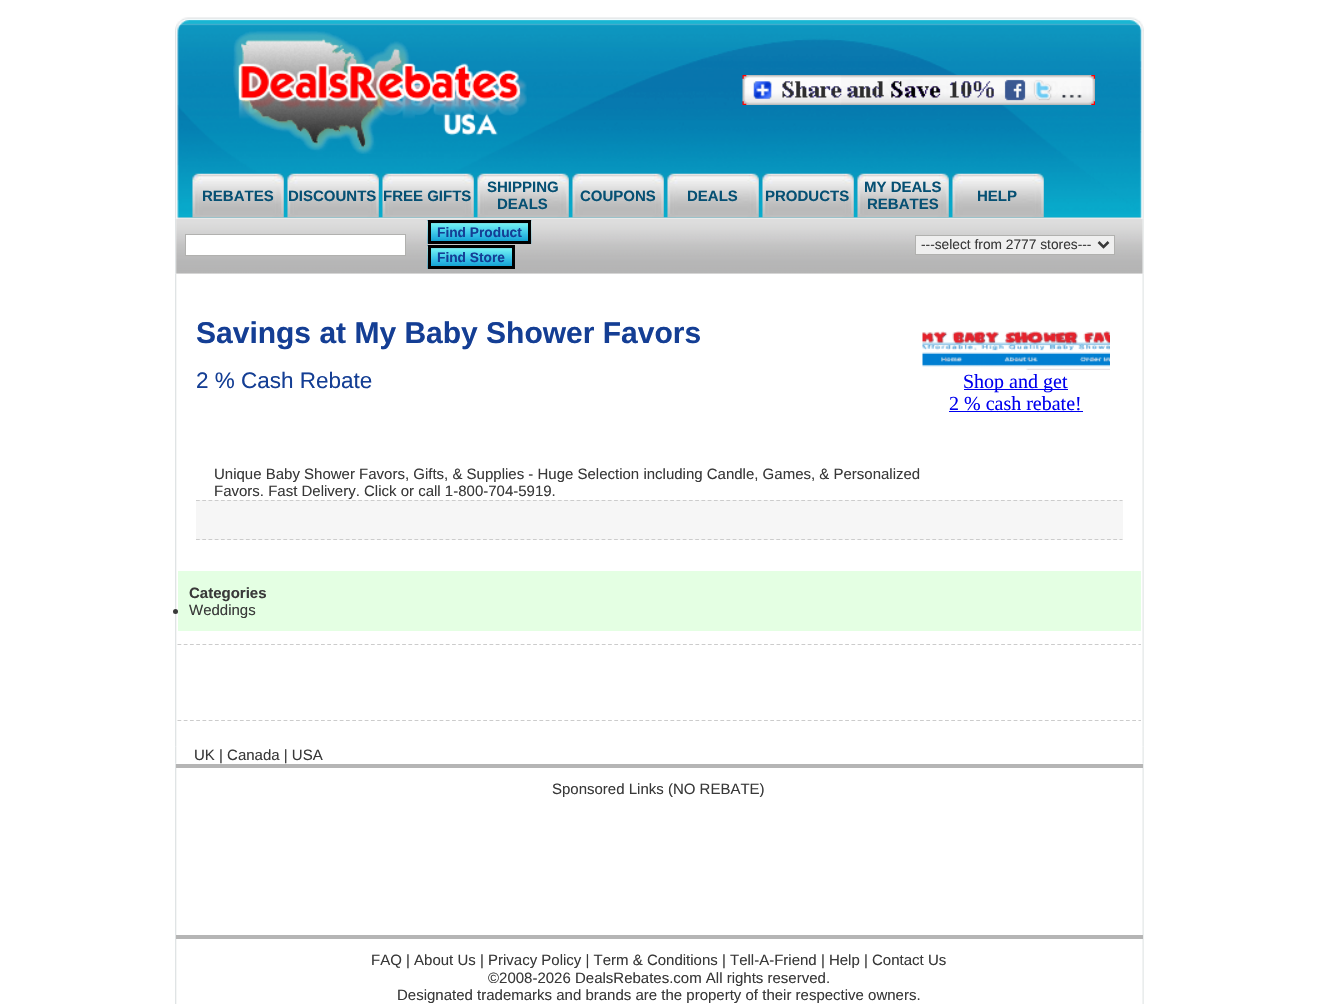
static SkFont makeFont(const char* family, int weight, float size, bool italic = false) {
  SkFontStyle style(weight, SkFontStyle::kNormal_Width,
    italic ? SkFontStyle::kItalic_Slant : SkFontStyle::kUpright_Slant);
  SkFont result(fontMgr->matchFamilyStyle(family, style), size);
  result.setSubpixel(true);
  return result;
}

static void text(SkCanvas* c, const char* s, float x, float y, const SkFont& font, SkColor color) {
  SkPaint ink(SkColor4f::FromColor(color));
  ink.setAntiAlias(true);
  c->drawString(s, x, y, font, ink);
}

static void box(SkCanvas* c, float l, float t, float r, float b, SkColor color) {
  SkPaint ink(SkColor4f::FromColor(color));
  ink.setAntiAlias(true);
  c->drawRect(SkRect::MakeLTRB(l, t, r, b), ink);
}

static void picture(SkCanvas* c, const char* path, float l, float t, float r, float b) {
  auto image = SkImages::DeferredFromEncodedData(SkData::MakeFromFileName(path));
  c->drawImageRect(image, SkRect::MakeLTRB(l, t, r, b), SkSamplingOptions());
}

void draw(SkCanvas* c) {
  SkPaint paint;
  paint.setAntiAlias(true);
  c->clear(0xffffffff);
  picture(c, "img_01.png", 175, 17, 1144, 219);
  picture(c, "img_02.png", 233, 31, 527, 154);
  picture(c, "img_03.png", 742, 75, 1095, 105);
  picture(c, "img_04.png", 192, 173, 284, 218);
  SkFont face1 = makeFont("Liberation Sans", 700, 15);
  text(c, "REBATES", 202, 201, face1, 0xff065073);
  picture(c, "img_05.png", 287, 173, 379, 218);
  text(c, "DISCOUNTS", 288, 201, face1, 0xff065073);
  picture(c, "img_06.png", 382, 173, 474, 218);
  text(c, "FREE GIFTS", 383, 201, face1, 0xff065073);
  picture(c, "img_07.png", 477, 173, 569, 218);
  text(c, "SHIPPING", 487, 192, face1, 0xff065073);
  text(c, "DEALS", 497, 209, face1, 0xff065073);
  picture(c, "img_08.png", 572, 173, 664, 218);
  text(c, "COUPONS", 580, 201, face1, 0xff065073);
  picture(c, "img_09.png", 667, 173, 759, 218);
  text(c, "DEALS", 687, 201, face1, 0xff065073);
  picture(c, "img_10.png", 762, 173, 854, 218);
  text(c, "PRODUCTS", 765, 201, face1, 0xff065073);
  picture(c, "img_11.png", 857, 173, 949, 218);
  text(c, "MY DEALS", 864, 192, face1, 0xff065073);
  text(c, "REBATES", 867, 209, face1, 0xff065073);
  picture(c, "img_12.png", 952, 173, 1044, 218);
  text(c, "HELP", 977, 201, face1, 0xff065073);
  picture(c, "img_13.png", 175, 218, 1144, 274);
  picture(c, "img_14.png", 176, 218, 1143, 274);
  paint.setColor(0xffffffff);
  c->drawRect(SkRect::MakeLTRB(185.5f, 234.5f, 405.5f, 255.5f), paint);
  paint.setStyle(SkPaint::kStroke_Style);
  paint.setStrokeWidth(1);
  paint.setColor(0xffb1b1af);
  c->drawRect(SkRect::MakeLTRB(185.5f, 234.5f, 405.5f, 255.5f), paint);
  picture(c, "img_15.png", 427, 220, 532, 244);
  paint.setStrokeWidth(3);
  paint.setColor(0xff000000);
  c->drawRect(SkRect::MakeLTRB(429.5f, 221.5f, 529.5f, 242.5f), paint);
  SkFont face2 = makeFont("Liberation Sans", 700, 13.75f);
  text(c, "Find Product", 437, 237, face2, 0xff143e94);
  picture(c, "img_16.png", 427, 245, 512, 269);
  c->drawRect(SkRect::MakeLTRB(429.5f, 246.5f, 513.5f, 267.5f), paint);
  text(c, "Find Store", 437, 262, face2, 0xff143e94);
  paint.setStyle(SkPaint::kFill_Style);
  paint.setColor(0xffefefef);
  c->drawRect(SkRect::MakeLTRB(915.5f, 235.5f, 1114.5f, 254.5f), paint);
  paint.setStyle(SkPaint::kStroke_Style);
  paint.setStrokeWidth(1);
  paint.setColor(0xffb1b1af);
  c->drawRect(SkRect::MakeLTRB(915.5f, 235.5f, 1114.5f, 254.5f), paint);
  paint.setStrokeWidth(2.5f);
  paint.setColor(0xff393939);
  c->drawPath(SkPathBuilder().moveTo(1098.5f, 242).lineTo(1103.5f, 247).lineTo(1108.5f, 242).detach(), paint);
  SkFont face3 = makeFont("Liberation Sans", 400, 13.75f);
  text(c, "---select from 2777 stores---", 921, 249, face3, 0xff393939);
  picture(c, "img_17.png", 175, 273, 1144, 747);
  SkFont face4 = makeFont("Liberation Sans", 700, 30);
  text(c, "Savings at My Baby Shower Favors", 196, 343, face4, 0xff143e94);
  SkFont face5 = makeFont("Liberation Sans", 400, 22.5f);
  text(c, "2 % Cash Rebate", 196, 388, face5, 0xff143e94);
  picture(c, "img_18.png", 922, 331, 1110, 370);
  box(c, 964, 389, 1068, 390, 0xff0000ee);
  SkFont face6 = makeFont("Liberation Serif", 400, 20);
  text(c, "Shop and get", 963, 388, face6, 0xff0000ee);
  text(c, "2 % cash rebate!", 949, 410, face6, 0xff0000ee);
  box(c, 949, 411, 1083, 412, 0xff0000ee);
  SkFont face7 = makeFont("Liberation Sans", 400, 15);
  text(c, "Unique Baby Shower Favors, Gifts, & Supplies - Huge Selection including Candle, Games, & Personalized", 214, 479, face7, 0xff393939);
  box(c, 196, 500, 1123, 540, 0xfff6f6f6);
  paint.setStrokeWidth(1.2f);
  paint.setColor(0xffcccccc);
  paint.setPathEffect(SkDashPathEffect::Make({{3.75f, 2.49f}}, 0));
  c->drawPath(SkPathBuilder().moveTo(196, 500.5f).lineTo(1122.5f, 500.5f).detach(), paint);
  paint.setPathEffect(nullptr);
  text(c, "Favors. Fast Delivery. Click or call 1-800-704-5919.", 214, 496, face7, 0xff393939);
  paint.setPathEffect(SkDashPathEffect::Make({{3.75f, 2.49f}}, 0));
  c->drawPath(SkPathBuilder().moveTo(196, 539.5f).lineTo(1122.5f, 539.5f).detach(), paint);
  paint.setPathEffect(nullptr);
  paint.setPathEffect(SkDashPathEffect::Make({{3.75f, 2.49f}}, 0));
  c->drawPath(SkPathBuilder().moveTo(177.5f, 644.5f).lineTo(1141, 644.5f).detach(), paint);
  paint.setPathEffect(nullptr);
  box(c, 178, 571, 1141, 631, 0xffe4ffe3);
  text(c, "Categories", 189, 598, face1, 0xff393939);
  paint.setStyle(SkPaint::kFill_Style);
  paint.setColor(0xff393939);
  c->drawCircle(175.5f, 611.5f, 2.5f, paint);
  text(c, "Weddings", 189, 615, face7, 0xff393939);
  paint.setStyle(SkPaint::kStroke_Style);
  paint.setColor(0xffcccccc);
  paint.setPathEffect(SkDashPathEffect::Make({{3.75f, 2.49f}}, 0));
  c->drawPath(SkPathBuilder().moveTo(177.5f, 720.5f).lineTo(1141, 720.5f).detach(), paint);
  paint.setPathEffect(nullptr);
  picture(c, "img_19.png", 175, 746, 1144, 764);
  text(c, "UK | Canada | USA", 194, 760, face7, 0xff393939);
  picture(c, "img_20.png", 175, 764, 1144, 1004);
  box(c, 176, 764, 1143, 768, 0xffb5b5b5);
  text(c, "Sponsored Links (NO REBATE)", 552, 794, face7, 0xff393939);
  box(c, 176, 935, 1143, 939, 0xffb5b5b5);
  text(c, "FAQ | About Us | Privacy Policy | Term & Conditions | Tell-A-Friend | Help | Contact Us", 371, 965, face7, 0xff393939);
  text(c, "©2008-2026 DealsRebates.com All rights reserved.", 488, 983, face7, 0xff393939);
  text(c, "Designated trademarks and brands are the property of their respective owners.", 397, 1000, face7, 0xff393939);
}
